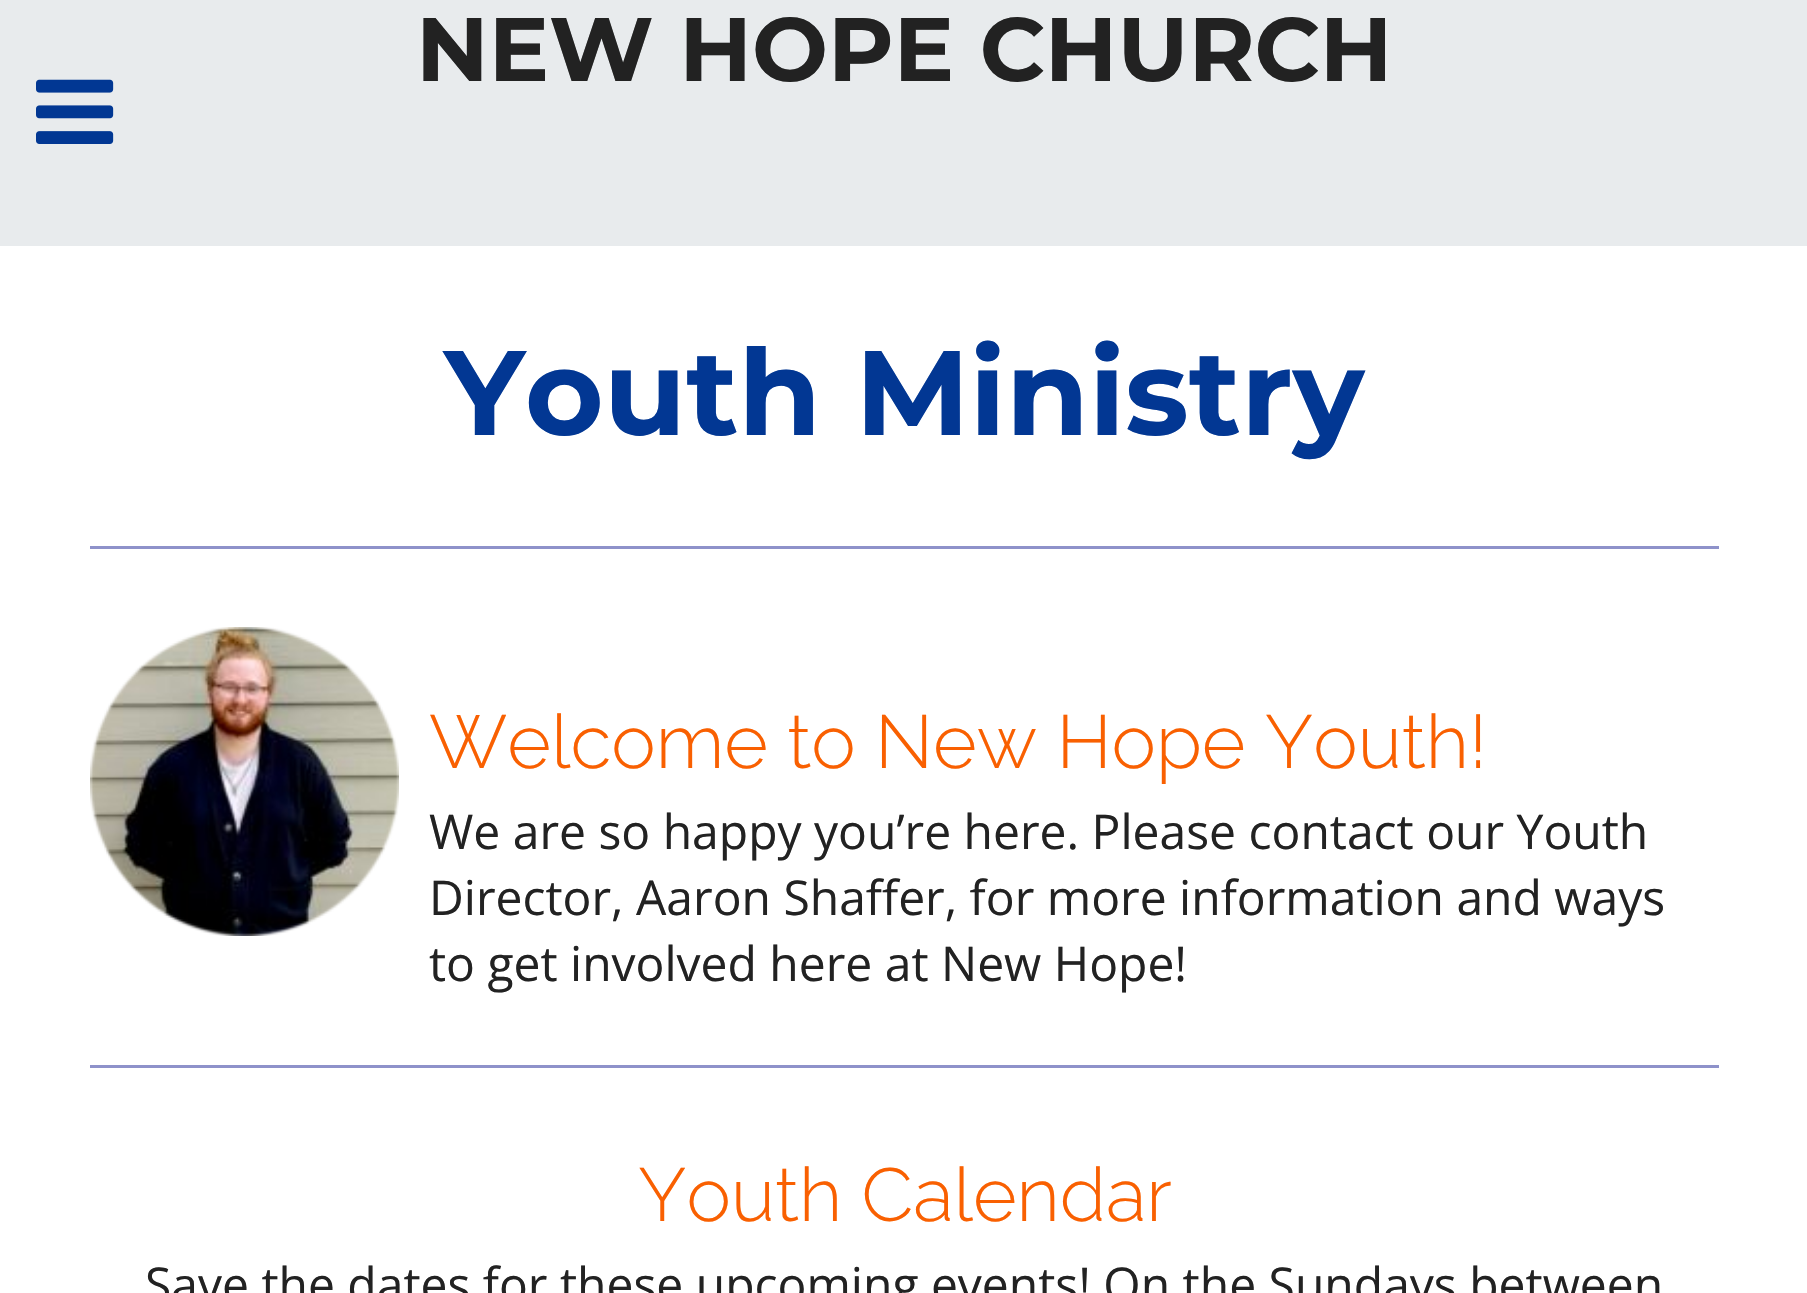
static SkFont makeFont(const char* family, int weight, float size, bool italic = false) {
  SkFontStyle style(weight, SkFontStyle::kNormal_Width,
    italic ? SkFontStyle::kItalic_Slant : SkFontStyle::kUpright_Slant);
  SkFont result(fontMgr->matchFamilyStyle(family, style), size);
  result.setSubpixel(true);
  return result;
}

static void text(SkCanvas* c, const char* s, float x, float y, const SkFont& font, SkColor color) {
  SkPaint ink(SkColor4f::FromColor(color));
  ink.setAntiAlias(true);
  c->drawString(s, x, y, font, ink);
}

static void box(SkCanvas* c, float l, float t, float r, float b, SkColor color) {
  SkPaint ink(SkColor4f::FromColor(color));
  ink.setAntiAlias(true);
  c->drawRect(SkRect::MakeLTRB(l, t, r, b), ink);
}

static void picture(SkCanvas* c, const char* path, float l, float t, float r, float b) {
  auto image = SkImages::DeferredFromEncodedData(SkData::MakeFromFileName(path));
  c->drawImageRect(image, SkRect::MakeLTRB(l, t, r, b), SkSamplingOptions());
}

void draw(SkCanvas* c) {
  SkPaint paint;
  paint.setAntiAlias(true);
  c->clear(0xffffffff);
  box(c, 0, 0, 1807, 246, 0xffe8ebed);
  SkFont face1 = makeFont("Montserrat", 700, 90);
  text(c, "NEW HOPE CHURCH", 416, 81, face1, 0xff222222);
  picture(c, "img_01.png", 36, 79, 114, 144);
  SkFont face2 = makeFont("Montserrat", 700, 120);
  text(c, "Youth Ministry", 444, 435, face2, 0xff023793);
  box(c, 90, 546, 1719, 549, 0xff8e92ca);
  picture(c, "img_02.png", 90, 627, 399, 936);
  SkFont face3 = makeFont("Raleway", 300, 75);
  text(c, "Welcome to New Hope Youth!", 429, 768, face3, 0xfff96001);
  SkFont face4 = makeFont("Open Sans", 400, 48);
  text(c, "We are so happy you’re here. Please contact our Youth", 429, 849, face4, 0xff222222);
  text(c, "Director, Aaron Shaffer, for more information and ways", 429, 915, face4, 0xff222222);
  text(c, "to get involved here at New Hope!", 429, 981, face4, 0xff222222);
  box(c, 90, 1065, 1719, 1068, 0xff8e92ca);
  text(c, "Youth Calendar", 638, 1221, face3, 0xfff96001);
  text(c, "Save the dates for these upcoming events! On the Sundays between", 145, 1302, face4, 0xff222222);
}
